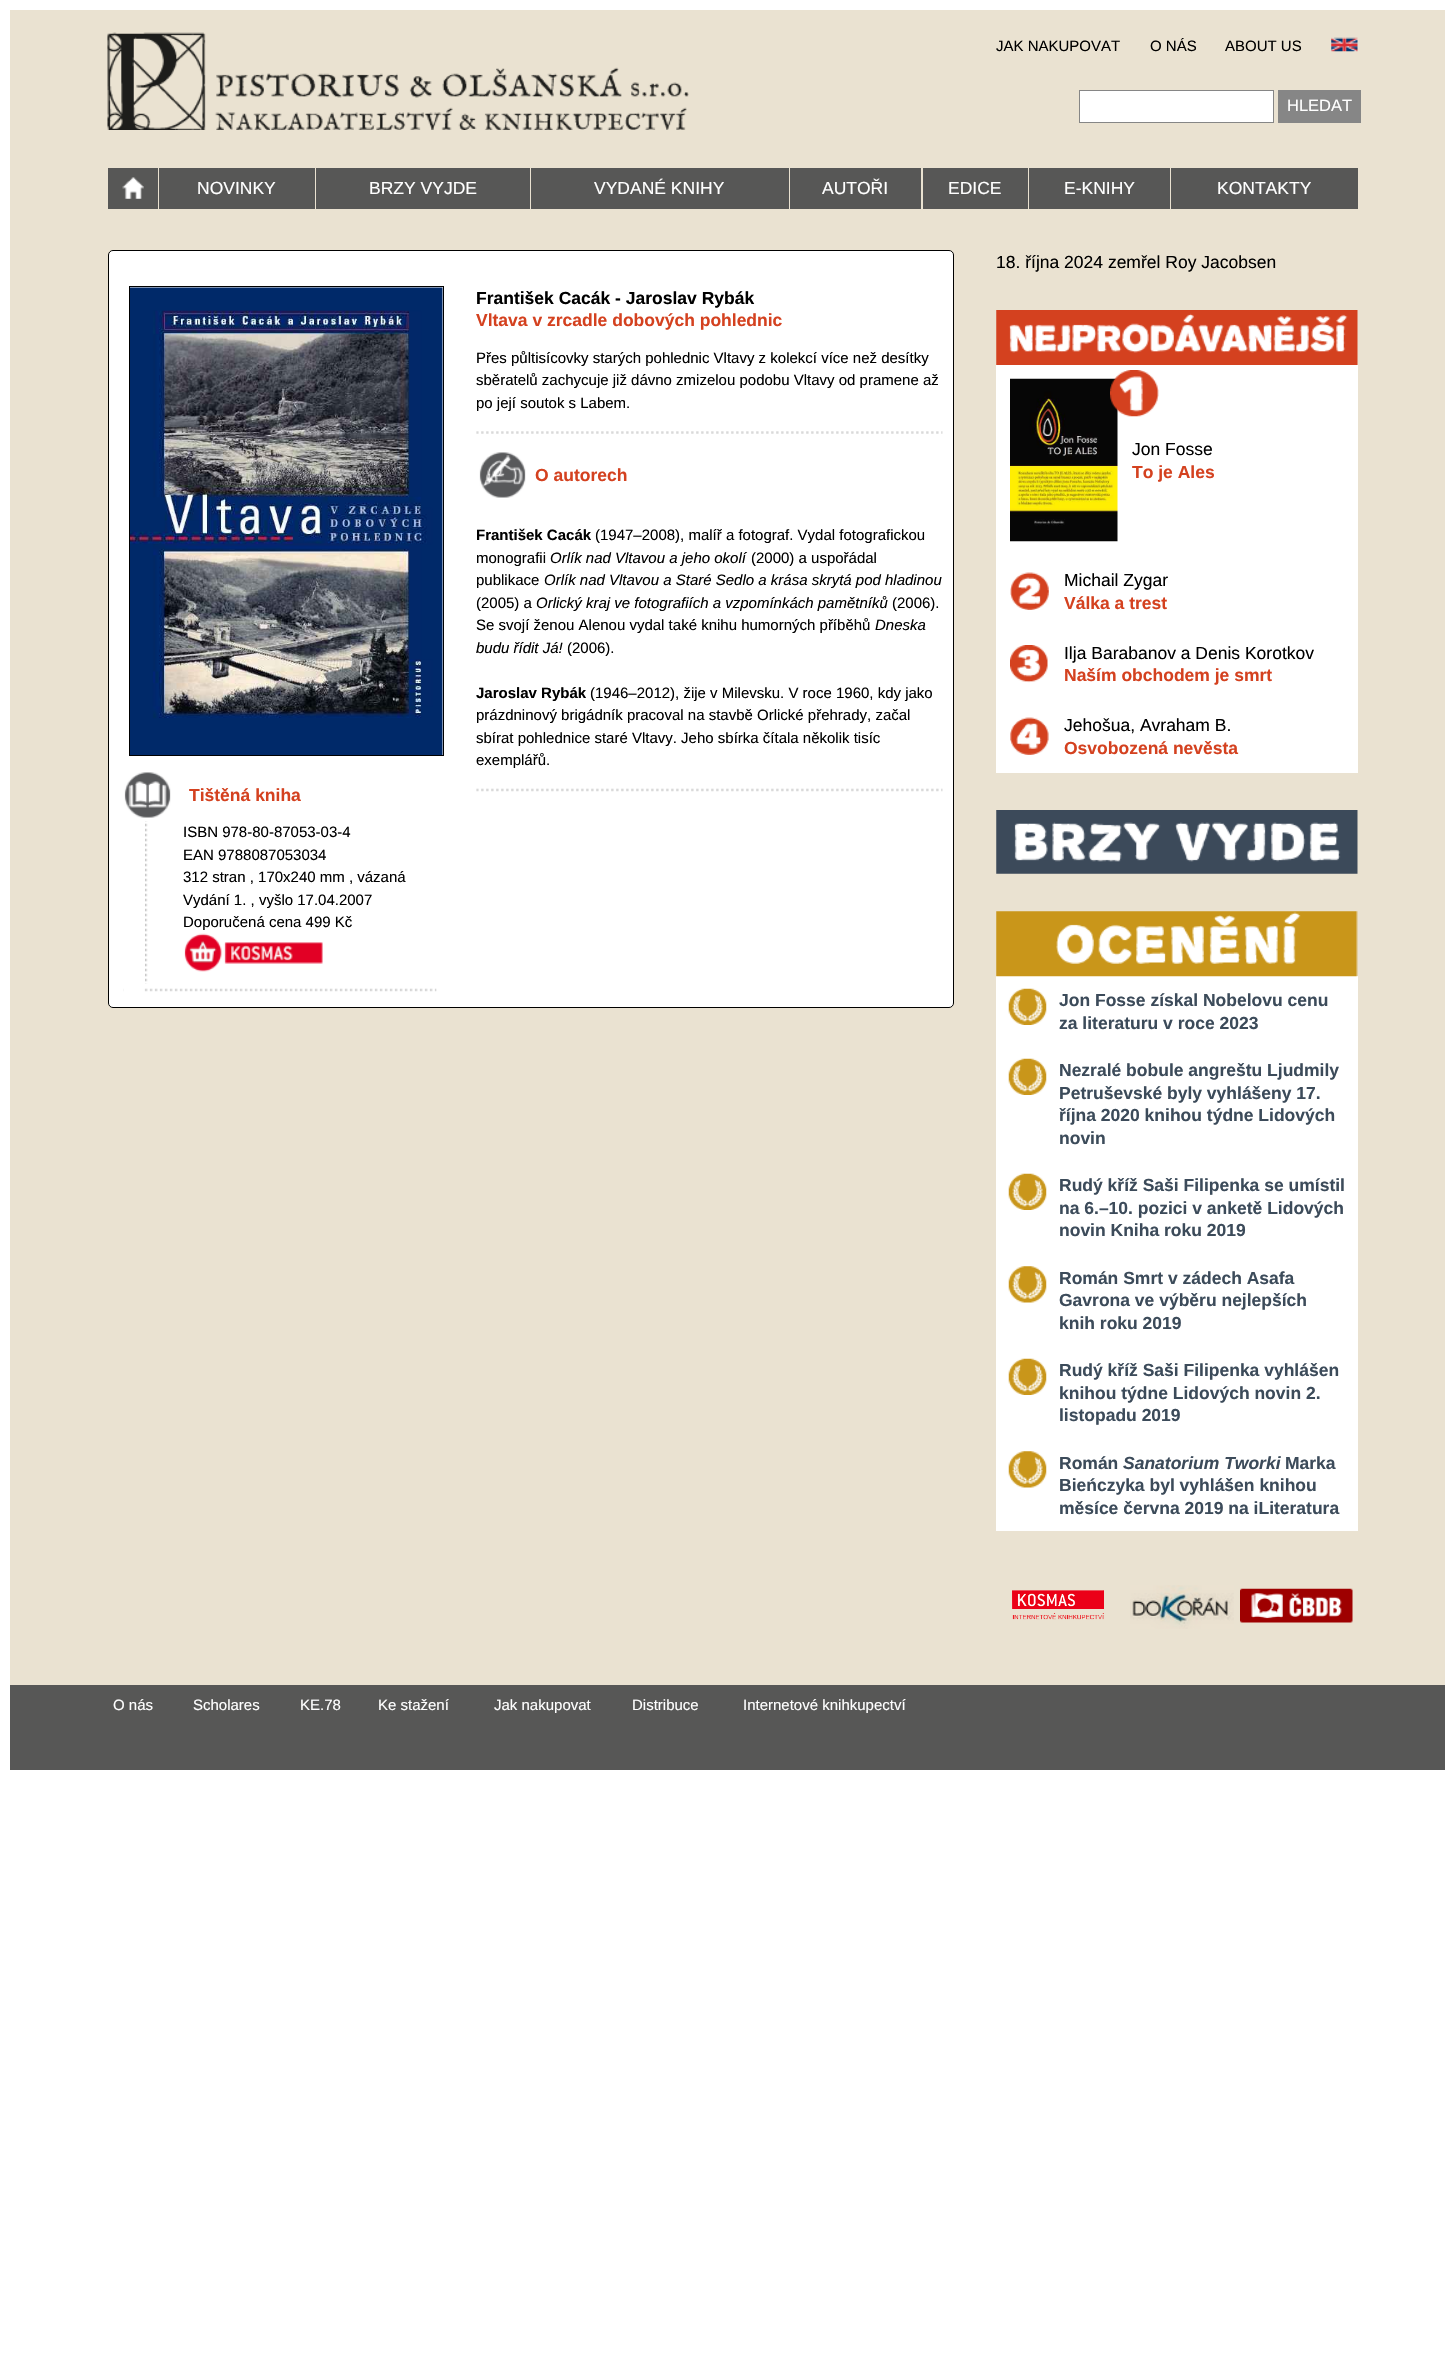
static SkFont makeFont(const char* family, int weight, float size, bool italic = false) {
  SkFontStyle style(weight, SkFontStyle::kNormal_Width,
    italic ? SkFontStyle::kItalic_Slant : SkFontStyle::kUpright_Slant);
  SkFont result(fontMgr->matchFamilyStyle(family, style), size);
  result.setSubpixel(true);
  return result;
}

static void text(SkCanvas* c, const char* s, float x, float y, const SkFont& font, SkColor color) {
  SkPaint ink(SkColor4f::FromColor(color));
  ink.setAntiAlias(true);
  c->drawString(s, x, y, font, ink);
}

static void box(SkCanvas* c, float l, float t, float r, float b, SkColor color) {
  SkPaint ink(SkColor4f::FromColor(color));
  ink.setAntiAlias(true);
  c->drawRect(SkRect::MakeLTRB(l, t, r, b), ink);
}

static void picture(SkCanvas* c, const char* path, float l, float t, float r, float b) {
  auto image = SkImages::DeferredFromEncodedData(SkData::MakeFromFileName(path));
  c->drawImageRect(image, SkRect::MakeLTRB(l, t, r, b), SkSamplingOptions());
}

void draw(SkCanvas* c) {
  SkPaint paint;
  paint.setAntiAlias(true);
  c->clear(0xffffffff);
  box(c, 10, 10, 1445, 1685, 0xffeae2d1);
  picture(c, "img_01.png", 107, 32, 689, 130);
  SkFont face1 = makeFont("Liberation Sans", 400, 15);
  text(c, "JAK NAKUPOVAT", 996, 51, face1, 0xff000000);
  text(c, "O NÁS", 1150, 51, face1, 0xff000000);
  text(c, "ABOUT US", 1225, 51, face1, 0xff000000);
  picture(c, "img_02.png", 1331, 37, 1358, 52);
  paint.setColor(0xffffffff);
  c->drawRect(SkRect::MakeLTRB(1079.5f, 90.5f, 1273.5f, 122.5f), paint);
  paint.setStyle(SkPaint::kStroke_Style);
  paint.setStrokeWidth(1);
  paint.setColor(0xff868686);
  c->drawRect(SkRect::MakeLTRB(1079.5f, 90.5f, 1273.5f, 122.5f), paint);
  box(c, 1278, 90, 1361, 123, 0xff868686);
  SkFont face2 = makeFont("Liberation Sans", 400, 16.5f);
  text(c, "HLEDAT", 1287, 111, face2, 0xffffffff);
  box(c, 108, 168, 158, 209, 0xff575756);
  picture(c, "img_03.png", 122, 177, 144, 199);
  box(c, 159, 168, 315, 209, 0xff575756);
  SkFont face3 = makeFont("Liberation Sans", 400, 17.5f);
  text(c, "NOVINKY", 197, 194, face3, 0xffffffff);
  box(c, 316, 168, 530, 209, 0xff575756);
  text(c, "BRZY VYJDE", 369, 194, face3, 0xffffffff);
  box(c, 531, 168, 789, 209, 0xff575756);
  text(c, "VYDANÉ KNIHY", 594, 194, face3, 0xffffffff);
  box(c, 790, 168, 921, 209, 0xff575756);
  text(c, "AUTOŘI", 822, 194, face3, 0xffffffff);
  box(c, 923, 168, 1028, 209, 0xff575756);
  text(c, "EDICE", 948, 194, face3, 0xffffffff);
  box(c, 1029, 168, 1170, 209, 0xff575756);
  text(c, "E-KNIHY", 1064, 194, face3, 0xffffffff);
  box(c, 1171, 168, 1358, 209, 0xff575756);
  text(c, "KONTAKTY", 1217, 194, face3, 0xffffffff);
  paint.setStyle(SkPaint::kFill_Style);
  paint.setColor(0xffffffff);
  c->drawRoundRect(SkRect::MakeLTRB(108.5f, 250.5f, 953.5f, 1007.5f), 4.5f, 4.5f, paint);
  paint.setStyle(SkPaint::kStroke_Style);
  paint.setColor(0xff000000);
  c->drawRoundRect(SkRect::MakeLTRB(108.5f, 250.5f, 953.5f, 1007.5f), 4.5f, 4.5f, paint);
  SkFont face4 = makeFont("Liberation Sans", 700, 17.5f);
  text(c, "František Cacák - Jaroslav Rybák", 476, 304, face4, 0xff000000);
  text(c, "Vltava v zrcadle dobových pohlednic", 476, 326, face4, 0xffd4411f);
  text(c, "Přes půltisícovky starých pohlednic Vltavy z kolekcí více než desítky", 476, 363, face1, 0xff000000);
  text(c, "sběratelů zachycuje již dávno zmizelou podobu Vltavy od pramene až", 476, 385, face1, 0xff000000);
  text(c, "po její soutok s Labem.", 476, 408, face1, 0xff000000);
  picture(c, "img_04.png", 476, 431, 943, 434);
  picture(c, "img_05.png", 479, 452, 526, 498);
  text(c, "O autorech", 535, 481, face4, 0xffd4411f);
  SkFont face5 = makeFont("Liberation Sans", 700, 15);
  text(c, "František Cacák", 476, 540, face5, 0xff000000);
  text(c, "(1947–2008), malíř a fotograf. Vydal fotografickou", 595, 540, face1, 0xff000000);
  text(c, "monografii", 476, 563, face1, 0xff000000);
  SkFont face6 = makeFont("Liberation Sans", 400, 15, true);
  text(c, "Orlík nad Vltavou a jeho okolí", 550, 563, face6, 0xff000000);
  text(c, "(2000) a uspořádal", 751, 563, face1, 0xff000000);
  text(c, "publikace", 476, 585, face1, 0xff000000);
  text(c, "Orlík nad Vltavou a Staré Sedlo a krása skrytá pod hladinou", 544, 585, face6, 0xff000000);
  text(c, "(2005) a", 476, 608, face1, 0xff000000);
  text(c, "Orlický kraj ve fotografiích a vzpomínkách pamětníků", 536, 608, face6, 0xff000000);
  text(c, "(2006).", 892, 608, face1, 0xff000000);
  text(c, "Se svojí ženou Alenou vydal také knihu humorných příběhů", 476, 630, face1, 0xff000000);
  text(c, "Dneska", 875, 630, face6, 0xff000000);
  text(c, "budu řídit Já!", 476, 653, face6, 0xff000000);
  text(c, "(2006).", 567, 653, face1, 0xff000000);
  text(c, "Jaroslav Rybák", 476, 698, face5, 0xff000000);
  text(c, "(1946–2012), žije v Milevsku. V roce 1960, kdy jako", 590, 698, face1, 0xff000000);
  text(c, "prázdninový brigádník pracoval na stavbě Orlické přehrady, začal", 476, 720, face1, 0xff000000);
  text(c, "sbírat pohlednice staré Vltavy. Jeho sbírka čítala několik tisíc", 476, 743, face1, 0xff000000);
  text(c, "exemplářů.", 476, 765, face1, 0xff000000);
  picture(c, "img_06.png", 476, 788, 943, 792);
  c->drawRect(SkRect::MakeLTRB(129.5f, 286.5f, 443.5f, 755.5f), paint);
  picture(c, "img_07.png", 130, 287, 443, 755);
  picture(c, "img_08.png", 124, 772, 171, 818);
  text(c, "Tištěná kniha", 189, 801, face4, 0xffd4411f);
  picture(c, "img_09.png", 145, 821, 148, 984);
  text(c, "ISBN 978-80-87053-03-4", 183, 837, face1, 0xff000000);
  text(c, "EAN 9788087053034", 183, 860, face1, 0xff000000);
  text(c, "312 stran , 170x240 mm , vázaná", 183, 882, face1, 0xff000000);
  text(c, "Vydání 1. , vyšlo 17.04.2007", 183, 905, face1, 0xff000000);
  text(c, "Doporučená cena 499 Kč", 183, 927, face1, 0xff000000);
  picture(c, "img_10.png", 184, 933, 323, 972);
  picture(c, "img_11.png", 123, 988, 437, 992);
  text(c, "18. října 2024 zemřel Roy Jacobsen", 996, 268, face3, 0xff000000);
  picture(c, "img_12.png", 996, 310, 1358, 365);
  box(c, 996, 365, 1358, 773, 0xffffffff);
  picture(c, "img_13.png", 1010, 378, 1118, 542);
  picture(c, "img_14.png", 1110, 370, 1159, 417);
  text(c, "Jon Fosse", 1132, 455, face3, 0xff000000);
  text(c, "To je Ales", 1132, 478, face4, 0xffd4411f);
  picture(c, "img_15.png", 1010, 572, 1049, 610);
  text(c, "Michail Zygar", 1064, 586, face3, 0xff000000);
  text(c, "Válka a trest", 1064, 609, face4, 0xffd4411f);
  picture(c, "img_16.png", 1010, 645, 1048, 683);
  text(c, "Ilja Barabanov a Denis Korotkov", 1064, 659, face3, 0xff000000);
  text(c, "Naším obchodem je smrt", 1064, 681, face4, 0xffd4411f);
  picture(c, "img_17.png", 1010, 717, 1049, 755);
  text(c, "Jehošua, Avraham B.", 1064, 731, face3, 0xff000000);
  text(c, "Osvobozená nevěsta", 1064, 754, face4, 0xffd4411f);
  picture(c, "img_18.png", 996, 810, 1358, 874);
  box(c, 996, 976, 1358, 1531, 0xffffffff);
  picture(c, "img_19.png", 996, 911, 1358, 977);
  picture(c, "img_20.png", 1008, 988, 1047, 1025);
  text(c, "Jon Fosse získal Nobelovu cenu", 1059, 1006, face4, 0xff3c4b5a);
  text(c, "za literaturu v roce 2023", 1059, 1029, face4, 0xff3c4b5a);
  picture(c, "img_20.png", 1008, 1058, 1047, 1095);
  text(c, "Nezralé bobule angreštu Ljudmily", 1059, 1076, face4, 0xff3c4b5a);
  text(c, "Petruševské byly vyhlášeny 17.", 1059, 1099, face4, 0xff3c4b5a);
  text(c, "října 2020 knihou týdne Lidových", 1059, 1121, face4, 0xff3c4b5a);
  text(c, "novin", 1059, 1144, face4, 0xff3c4b5a);
  picture(c, "img_21.png", 1008, 1173, 1047, 1210);
  text(c, "Rudý kříž Saši Filipenka se umístil", 1059, 1191, face4, 0xff3c4b5a);
  text(c, "na 6.–10. pozici v anketě Lidových", 1059, 1214, face4, 0xff3c4b5a);
  text(c, "novin Kniha roku 2019", 1059, 1236, face4, 0xff3c4b5a);
  picture(c, "img_22.png", 1008, 1266, 1047, 1303);
  text(c, "Román Smrt v zádech Asafa", 1059, 1284, face4, 0xff3c4b5a);
  text(c, "Gavrona ve výběru nejlepších", 1059, 1306, face4, 0xff3c4b5a);
  text(c, "knih roku 2019", 1059, 1329, face4, 0xff3c4b5a);
  picture(c, "img_20.png", 1008, 1358, 1047, 1395);
  text(c, "Rudý kříž Saši Filipenka vyhlášen", 1059, 1376, face4, 0xff3c4b5a);
  text(c, "knihou týdne Lidových novin 2.", 1059, 1399, face4, 0xff3c4b5a);
  text(c, "listopadu 2019", 1059, 1421, face4, 0xff3c4b5a);
  picture(c, "img_22.png", 1008, 1451, 1047, 1488);
  text(c, "Román", 1059, 1469, face4, 0xff3c4b5a);
  SkFont face7 = makeFont("Liberation Sans", 700, 17.5f, true);
  text(c, "Sanatorium Tworki", 1123, 1469, face7, 0xff3c4b5a);
  text(c, "Marka", 1285, 1469, face4, 0xff3c4b5a);
  text(c, "Bieńczyka byl vyhlášen knihou", 1059, 1491, face4, 0xff3c4b5a);
  text(c, "měsíce června 2019 na iLiteratura", 1059, 1514, face4, 0xff3c4b5a);
  picture(c, "img_23.png", 1012, 1590, 1104, 1620);
  picture(c, "img_24.png", 1130, 1585, 1234, 1629);
  picture(c, "img_25.png", 1240, 1588, 1353, 1623);
  box(c, 10, 1685, 1445, 1770, 0xff575756);
  text(c, "O nás", 113, 1710, face1, 0xffffffff);
  text(c, "Scholares", 193, 1710, face1, 0xffffffff);
  text(c, "KE.78", 300, 1710, face1, 0xffffffff);
  text(c, "Ke stažení", 378, 1710, face1, 0xffffffff);
  text(c, "Jak nakupovat", 494, 1710, face1, 0xffffffff);
  text(c, "Distribuce", 632, 1710, face1, 0xffffffff);
  text(c, "Internetové knihkupectví", 743, 1710, face1, 0xffffffff);
}
